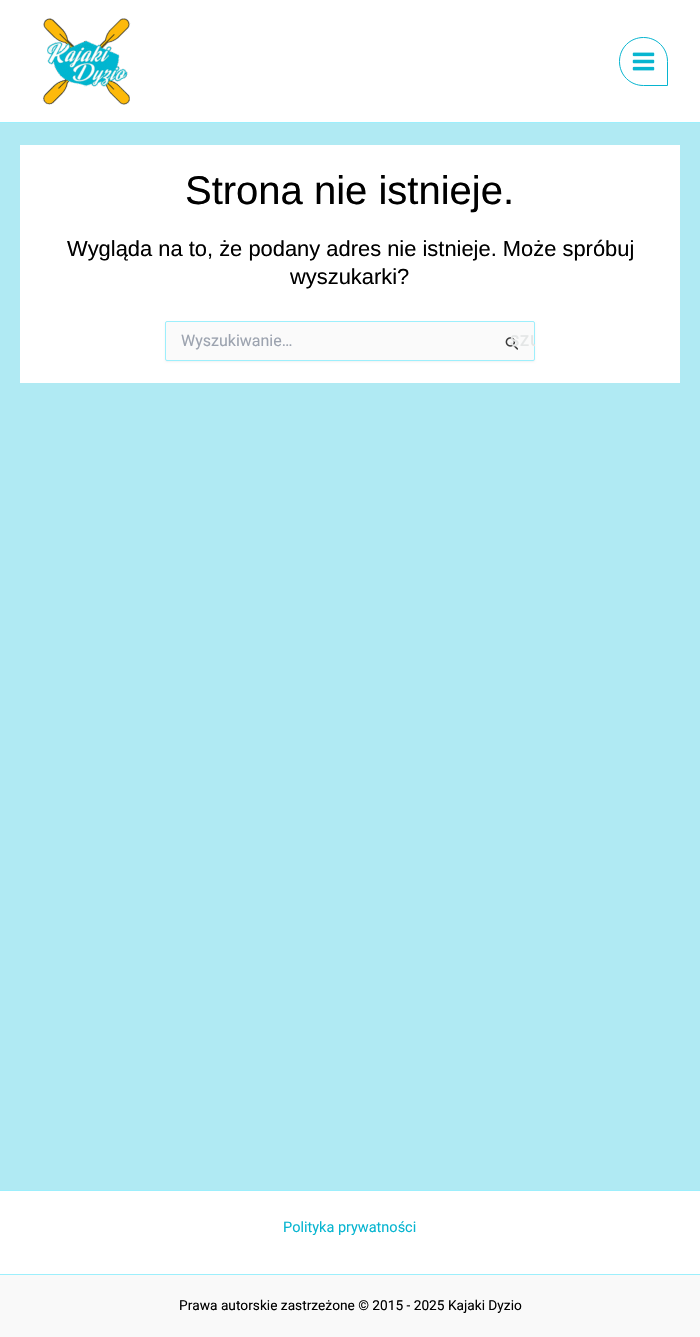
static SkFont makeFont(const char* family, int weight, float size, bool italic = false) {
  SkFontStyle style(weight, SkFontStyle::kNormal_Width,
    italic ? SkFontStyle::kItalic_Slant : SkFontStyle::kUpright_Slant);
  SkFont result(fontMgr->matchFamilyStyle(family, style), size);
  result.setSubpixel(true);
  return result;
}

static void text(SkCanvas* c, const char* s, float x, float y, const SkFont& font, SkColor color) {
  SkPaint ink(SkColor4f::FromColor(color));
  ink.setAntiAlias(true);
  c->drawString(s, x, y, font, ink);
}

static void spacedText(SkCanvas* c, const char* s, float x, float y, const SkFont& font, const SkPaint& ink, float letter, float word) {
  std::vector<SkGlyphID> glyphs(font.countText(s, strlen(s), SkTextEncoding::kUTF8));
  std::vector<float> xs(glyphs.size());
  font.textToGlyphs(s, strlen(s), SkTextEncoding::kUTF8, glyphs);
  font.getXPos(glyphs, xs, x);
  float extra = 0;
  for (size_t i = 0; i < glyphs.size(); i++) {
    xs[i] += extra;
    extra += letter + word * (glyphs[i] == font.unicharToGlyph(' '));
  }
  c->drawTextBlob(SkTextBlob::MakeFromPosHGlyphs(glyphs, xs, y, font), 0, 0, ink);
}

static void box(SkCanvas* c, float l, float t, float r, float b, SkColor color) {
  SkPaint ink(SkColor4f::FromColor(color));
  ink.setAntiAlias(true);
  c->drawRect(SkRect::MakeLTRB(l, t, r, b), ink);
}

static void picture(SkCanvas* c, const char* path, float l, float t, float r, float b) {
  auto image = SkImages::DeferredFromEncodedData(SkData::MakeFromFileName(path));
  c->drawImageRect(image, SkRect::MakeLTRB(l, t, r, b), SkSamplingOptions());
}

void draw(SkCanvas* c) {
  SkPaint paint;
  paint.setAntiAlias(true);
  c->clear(0xffb0eaf3);
  box(c, 0, 0, 700, 122, 0xffffffff);
  box(c, 0, 122, 700, 123, 0xff9deffc);
  picture(c, "img_01.png", 42, 18, 131, 105);
  paint.setStyle(SkPaint::kStroke_Style);
  paint.setStrokeWidth(1);
  paint.setColor(0xff07b5d0);
  c->drawPath(SkPathBuilder().moveTo(643.5f, 37.5f).cubicTo(657, 37.5f, 667.5f, 48, 667.5f, 61.5f).lineTo(667.5f, 85.5f).lineTo(643.5f, 85.5f).cubicTo(630, 85.5f, 619.5f, 75, 619.5f, 61.5f).cubicTo(619.5f, 48, 630, 37.5f, 643.5f, 37.5f).close().detach(), paint);
  picture(c, "img_02.png", 632, 52, 655, 71);
  box(c, 20, 145, 680, 383, 0xffffffff);
  SkFont face1 = makeFont("Liberation Sans", 400, 40);
  text(c, "Strona nie istnieje.", 185, 204, face1, 0xff000000);
  SkFont face2 = makeFont("Liberation Sans", 400, 21.9f);
  text(c, "Wygląda na to, że podany adres nie istnieje. Może spróbuj", 67, 256, face2, 0xff000000);
  text(c, "wyszukarki?", 290, 284, face2, 0xff000000);
  paint.setStyle(SkPaint::kFill_Style);
  paint.setColor(0x0d000000);
  paint.setMaskFilter(SkMaskFilter::MakeBlur(kNormal_SkBlurStyle, 1));
  c->drawRoundRect(SkRect::MakeLTRB(165, 322, 535, 362), 2, 2, paint);
  paint.setMaskFilter(nullptr);
  paint.setColor(0xfffafafa);
  c->drawRoundRect(SkRect::MakeLTRB(165.5f, 321.5f, 534.5f, 360.5f), 1.5f, 1.5f, paint);
  paint.setStyle(SkPaint::kStroke_Style);
  paint.setColor(0xff9deffc);
  c->drawRoundRect(SkRect::MakeLTRB(165.5f, 321.5f, 534.5f, 360.5f), 1.5f, 1.5f, paint);
  SkFont face3 = makeFont("Roboto", 400, 16);
  text(c, "Wyszukiwanie…", 181, 346, face3, 0xff9ca3af);
  picture(c, "img_03.png", 505, 337, 518, 350);
  c->save();
  c->clipPath(SkPathBuilder().moveTo(492, 321).lineTo(533, 321).cubicTo(534, 321, 535, 322, 535, 323).lineTo(535, 359).cubicTo(535, 360, 534, 361, 533, 361).lineTo(492, 361).cubicTo(491, 361, 490, 360, 490, 359).lineTo(490, 323).cubicTo(490, 322, 491, 321, 492, 321).close().detach(), true);
  SkFont face4 = makeFont("Roboto", 700, 14.5f);
  paint.setStyle(SkPaint::kFill_Style);
  paint.setColor(0xffe4e6e6);
  spacedText(c, "SZU", 510, 346, face4, paint, 1.5f, 0);
  c->restore();
  box(c, 0, 1191, 700, 1274, 0xffffffff);
  box(c, 0, 1190, 700, 1191, 0xff9deffc);
  SkFont face5 = makeFont("Roboto", 400, 14.5f);
  text(c, "Polityka prywatności", 283, 1232, face5, 0xff07b5d0);
  box(c, 0, 1275, 700, 1337, 0xfff9f9f9);
  box(c, 0, 1274, 700, 1275, 0xff9deffc);
  SkFont face6 = makeFont("Roboto", 400, 13.7f);
  text(c, "Prawa autorskie zastrzeżone © 2015 - 2025 Kajaki Dyzio", 179, 1310, face6, 0xff000000);
}
